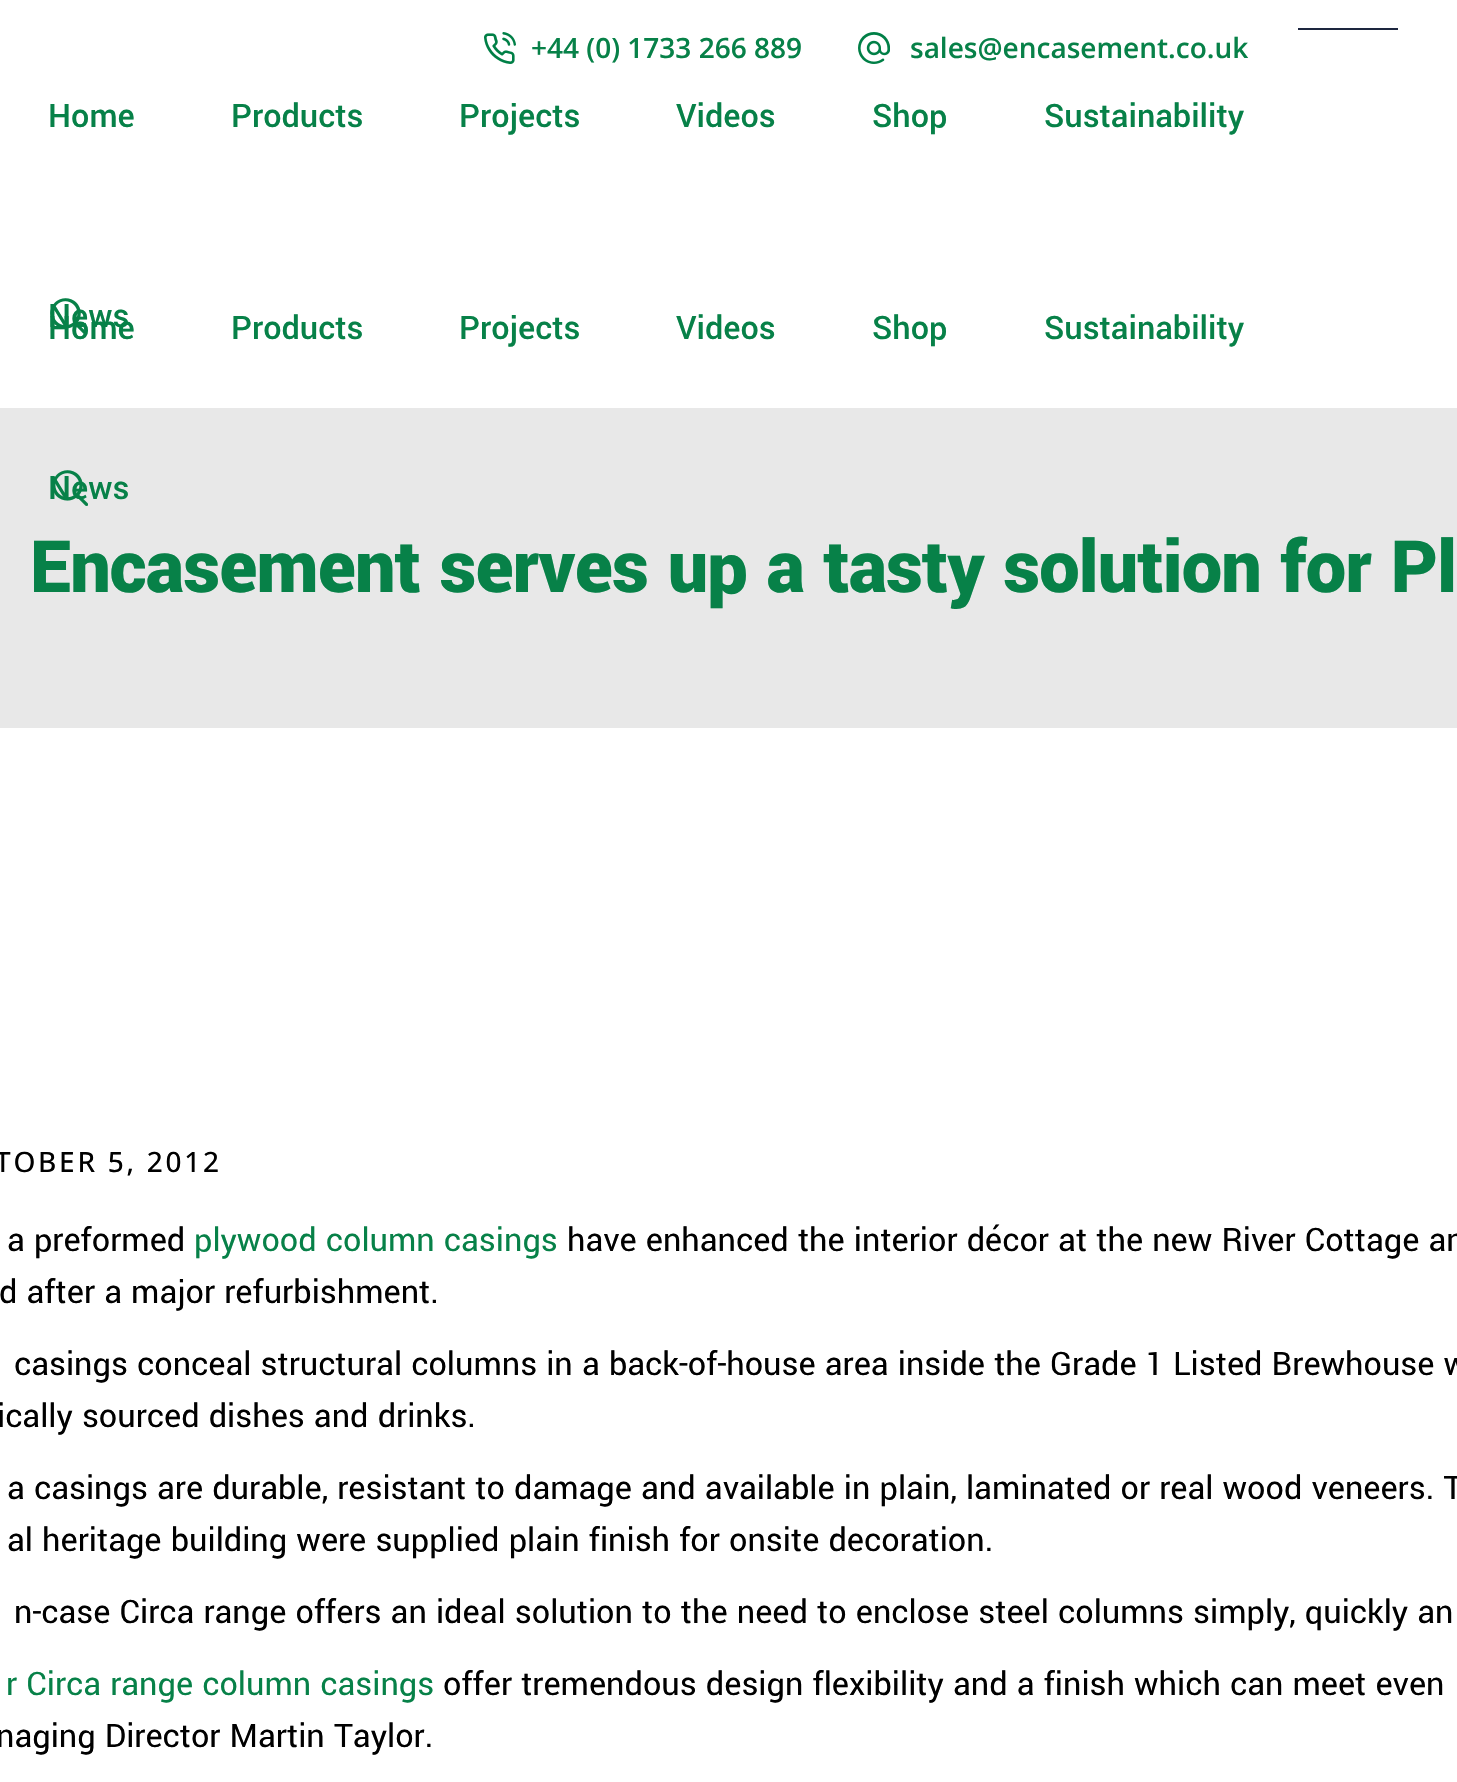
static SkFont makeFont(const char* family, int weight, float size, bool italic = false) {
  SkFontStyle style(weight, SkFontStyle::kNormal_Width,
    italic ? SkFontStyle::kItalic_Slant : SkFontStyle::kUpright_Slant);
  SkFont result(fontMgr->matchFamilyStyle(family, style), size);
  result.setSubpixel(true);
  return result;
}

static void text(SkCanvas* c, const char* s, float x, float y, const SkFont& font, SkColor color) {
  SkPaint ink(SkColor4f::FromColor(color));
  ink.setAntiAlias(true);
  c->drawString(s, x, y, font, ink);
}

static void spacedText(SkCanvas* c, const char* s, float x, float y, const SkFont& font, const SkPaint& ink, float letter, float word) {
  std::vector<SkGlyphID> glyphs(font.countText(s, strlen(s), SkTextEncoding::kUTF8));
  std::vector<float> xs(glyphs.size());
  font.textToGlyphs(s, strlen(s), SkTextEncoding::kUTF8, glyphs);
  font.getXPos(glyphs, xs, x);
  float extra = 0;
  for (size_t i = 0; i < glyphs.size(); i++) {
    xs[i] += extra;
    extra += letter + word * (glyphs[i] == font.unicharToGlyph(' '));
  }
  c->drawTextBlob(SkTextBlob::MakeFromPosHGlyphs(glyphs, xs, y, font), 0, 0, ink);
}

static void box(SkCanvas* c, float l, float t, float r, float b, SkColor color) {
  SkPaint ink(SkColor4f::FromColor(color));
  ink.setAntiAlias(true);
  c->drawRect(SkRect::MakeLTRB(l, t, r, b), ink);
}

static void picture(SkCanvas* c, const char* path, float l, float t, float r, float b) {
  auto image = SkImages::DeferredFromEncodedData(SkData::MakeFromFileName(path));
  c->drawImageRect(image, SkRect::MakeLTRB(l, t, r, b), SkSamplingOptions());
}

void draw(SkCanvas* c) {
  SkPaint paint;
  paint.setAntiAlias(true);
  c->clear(0xffffffff);
  box(c, 1298, 28, 1398, 30, 0xff1d263f);
  picture(c, "img_01.png", 484, 32, 516, 64);
  SkFont face1 = makeFont("Open Sans", 600, 28);
  text(c, "+44 (0) 1733 266 889", 531, 58, face1, 0xff078148);
  picture(c, "img_02.png", 858, 32, 890, 64);
  text(c, "sales@encasement.co.uk", 910, 58, face1, 0xff078148);
  SkFont face2 = makeFont("Yantramanav", 500, 36);
  text(c, "Home", 48, 127, face2, 0xff078148);
  text(c, "Products", 231, 127, face2, 0xff078148);
  text(c, "Projects", 459, 127, face2, 0xff078148);
  text(c, "Videos", 676, 127, face2, 0xff078148);
  text(c, "Shop", 872, 127, face2, 0xff078148);
  text(c, "Sustainability", 1044, 127, face2, 0xff078148);
  text(c, "Home", 48, 339, face2, 0xff078148);
  text(c, "News", 48, 327, face2, 0xff078148);
  picture(c, "img_03.png", 50, 298, 85, 334);
  text(c, "Products", 231, 339, face2, 0xff078148);
  text(c, "Projects", 459, 339, face2, 0xff078148);
  text(c, "Videos", 676, 339, face2, 0xff078148);
  text(c, "Shop", 872, 339, face2, 0xff078148);
  text(c, "Sustainability", 1044, 339, face2, 0xff078148);
  box(c, 0, 408, 1457, 728, 0xffe8e8e8);
  text(c, "News", 48, 499, face2, 0xff078148);
  picture(c, "img_04.png", 54, 470, 88, 506);
  SkFont face3 = makeFont("Yantramanav", 900, 80);
  paint.setColor(0xff078148);
  spacedText(c, "Encasement serves up a tasty solution for Pl", 30, 592, face3, paint, -0.8f, 0);
  SkFont face4 = makeFont("Open Sans", 500, 28);
  paint.setColor(0xff000000);
  spacedText(c, "TOBER 5, 2012", -5, 1172, face4, paint, 2.75f, 0);
  SkFont face5 = makeFont("Yantramanav", 400, 36);
  text(c, "a preformed", 7, 1251, face5, 0xff000000);
  text(c, "plywood column casings", 194, 1251, face5, 0xff078148);
  text(c, "have enhanced the interior décor at the new River Cottage an", 567, 1251, face5, 0xff000000);
  text(c, "d after a major refurbishment.", -1, 1303, face5, 0xff000000);
  text(c, "casings conceal structural columns in a back-of-house area inside the Grade 1 Listed Brewhouse w", 14, 1375, face5, 0xff000000);
  text(c, "ically sourced dishes and drinks.", -3, 1427, face5, 0xff000000);
  text(c, "a casings are durable, resistant to damage and available in plain, laminated or real wood veneers. T", 7, 1499, face5, 0xff000000);
  text(c, "al heritage building were supplied plain finish for onsite decoration.", 7, 1551, face5, 0xff000000);
  text(c, "n-case Circa range offers an ideal solution to the need to enclose steel columns simply, quickly an", 14, 1623, face5, 0xff000000);
  text(c, "r Circa range column casings", 6, 1695, face5, 0xff078148);
  text(c, "offer tremendous design flexibility and a finish which can meet even", 443, 1695, face5, 0xff000000);
  text(c, "naging Director Martin Taylor.", -4, 1747, face5, 0xff000000);
}
